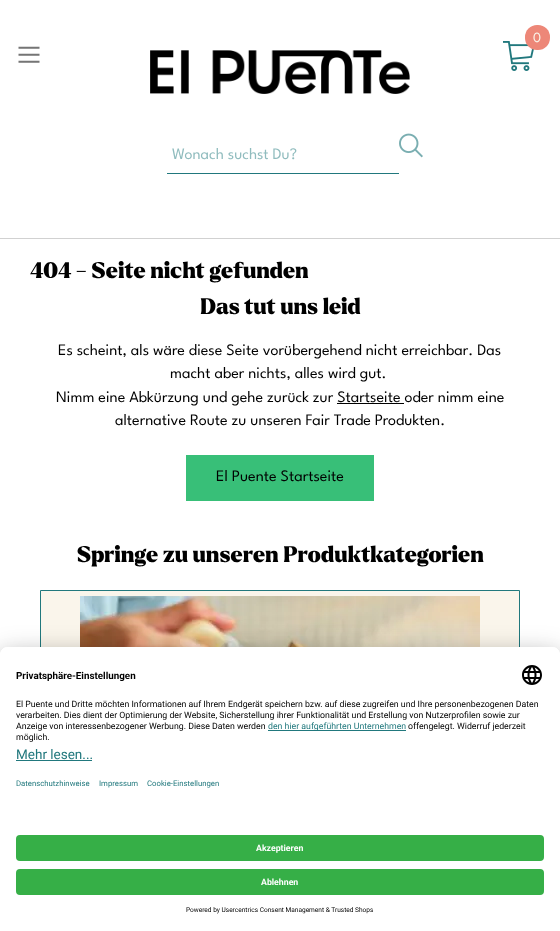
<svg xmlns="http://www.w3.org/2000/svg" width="560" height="931">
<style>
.a{font:14px League Spartan;fill:#faf5eb}
.b{font:16px League Spartan;fill:#90bcbe}
.c{font:900 22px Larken;fill:#000}
.d{font:16px League Spartan;fill:#000}
.e{font:bold 9.8px Roboto;fill:#000}
.f{font:8.75px Roboto;fill:#000}
.g{font:8.75px Roboto;fill:#21787d}
.h{font:13.5px Roboto;fill:#21787d}
.i{font:7.75px Roboto;fill:#21787d}
.j{font:bold 8.75px Roboto;fill:#fff}
.k{font:6.55px Roboto;fill:#000}
</style>
<rect width="100%" height="100%" fill="#fff"/>
<path fill="#d1d1d1" d="M0 238h560v1H0z"/>
<image href="1.png" x="503" y="41" width="31" height="30"/>
<rect fill="#ed8778" x="525" y="25" width="25" height="25" rx="12"/>
<image href="2.png" x="18" y="46" width="22" height="17"/>
<image href="3.png" x="150" y="50" width="260" height="44"/>
<path fill="#21787d" d="M167 173h232v1H167z"/>
<image href="4.png" x="399" y="133" width="24" height="25"/>
<path fill="#000" d="M337 403h67v1H337z"/>
<path fill="#38bf78" d="M186 455h188v46H186z"/>
<path fill="#faf5eb" d="M41 591h478v56H41z"/>
<path fill="none" stroke="#21787d" d="M40.5 590.5h479v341H40.5z"/>
<image href="5.png" x="80" y="596" width="400" height="51"/>
<rect fill="#0000004d" filter="blur(14px)" y="667" width="560" height="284" rx="8"/>
<rect fill="#00000038" filter="blur(13px)" y="652" width="560" height="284" rx="8"/>
<path fill="#fff" d="M8 647h544c4.5 0 8 3.5 8 8v276h-560v-276c0-4.5 3.5-8 8-8z"/>
<path fill="#fff" d="M8 647h544c4.5 0 8 3.5 8 8v168h-560v-168c0-4.5 3.5-8 8-8z"/>
<image href="6.png" x="522" y="665" width="20" height="20"/>
<path fill="#21787d" d="M268 730h138v1H268z"/>
<path fill="#21787d" d="M16 760h76v1H16z"/>
<rect fill="#36af47" x="16" y="835" width="528" height="26" rx="4"/>
<rect fill="#36af47" x="16" y="869" width="528" height="26" rx="4"/>
<text class="a" x="533" y="42">0</text>
<text class="b" x="172" y="159">Wonach suchst Du?</text>
<text class="c" x="30" y="278">404 - Seite nicht gefunden</text>
<text class="c" x="200" y="314">Das tut uns leid</text>
<text class="d" x="58" y="355">Es scheint, als wäre diese Seite vorübergehend nicht erreichbar. Das</text>
<text class="d" x="170" y="378">macht aber nichts, alles wird gut.</text>
<text class="d" x="56" y="402">Nimm eine Abkürzung und gehe zurück zur Startseite oder nimm eine</text>
<text class="d" x="115" y="425">alternative Route zu unseren Fair Trade Produkten.</text>
<text class="d" x="216" y="481">El Puente Startseite</text>
<text class="c" x="77" y="562">Springe zu unseren Produktkategorien</text>
<text class="e" x="16" y="679">Privatsphäre-Einstellungen</text>
<text class="f" x="16" y="707">El Puente und Dritte möchten Informationen auf Ihrem Endgerät speichern bzw. auf diese zugreifen und Ihre personenbezogenen Daten</text>
<text class="f" x="16" y="718">verarbeiten. Dies dient der Optimierung der Website, Sicherstellung ihrer Funktionalität und Erstellung von Nutzerprofilen sowie zur</text>
<text class="f" x="16" y="729">Anzeige von interessenbezogener Werbung. Diese Daten werden</text>
<text class="g" x="268" y="729">den hier aufgeführten Unternehmen</text>
<text class="f" x="408" y="729">offengelegt. Widerruf jederzeit</text>
<text class="f" x="16" y="740">möglich.</text>
<text class="h" x="16" y="759">Mehr lesen...</text>
<text class="i" x="16" y="786">Datenschutzhinweise</text>
<text class="i" x="99" y="786">Impressum</text>
<text class="i" x="147" y="786">Cookie-Einstellungen</text>
<text class="j" x="256" y="851">Akzeptieren</text>
<text class="j" x="261" y="885">Ablehnen</text>
<text class="k" x="186" y="912">Powered by Usercentrics Consent Management &amp; Trusted Shops</text>
</svg>
